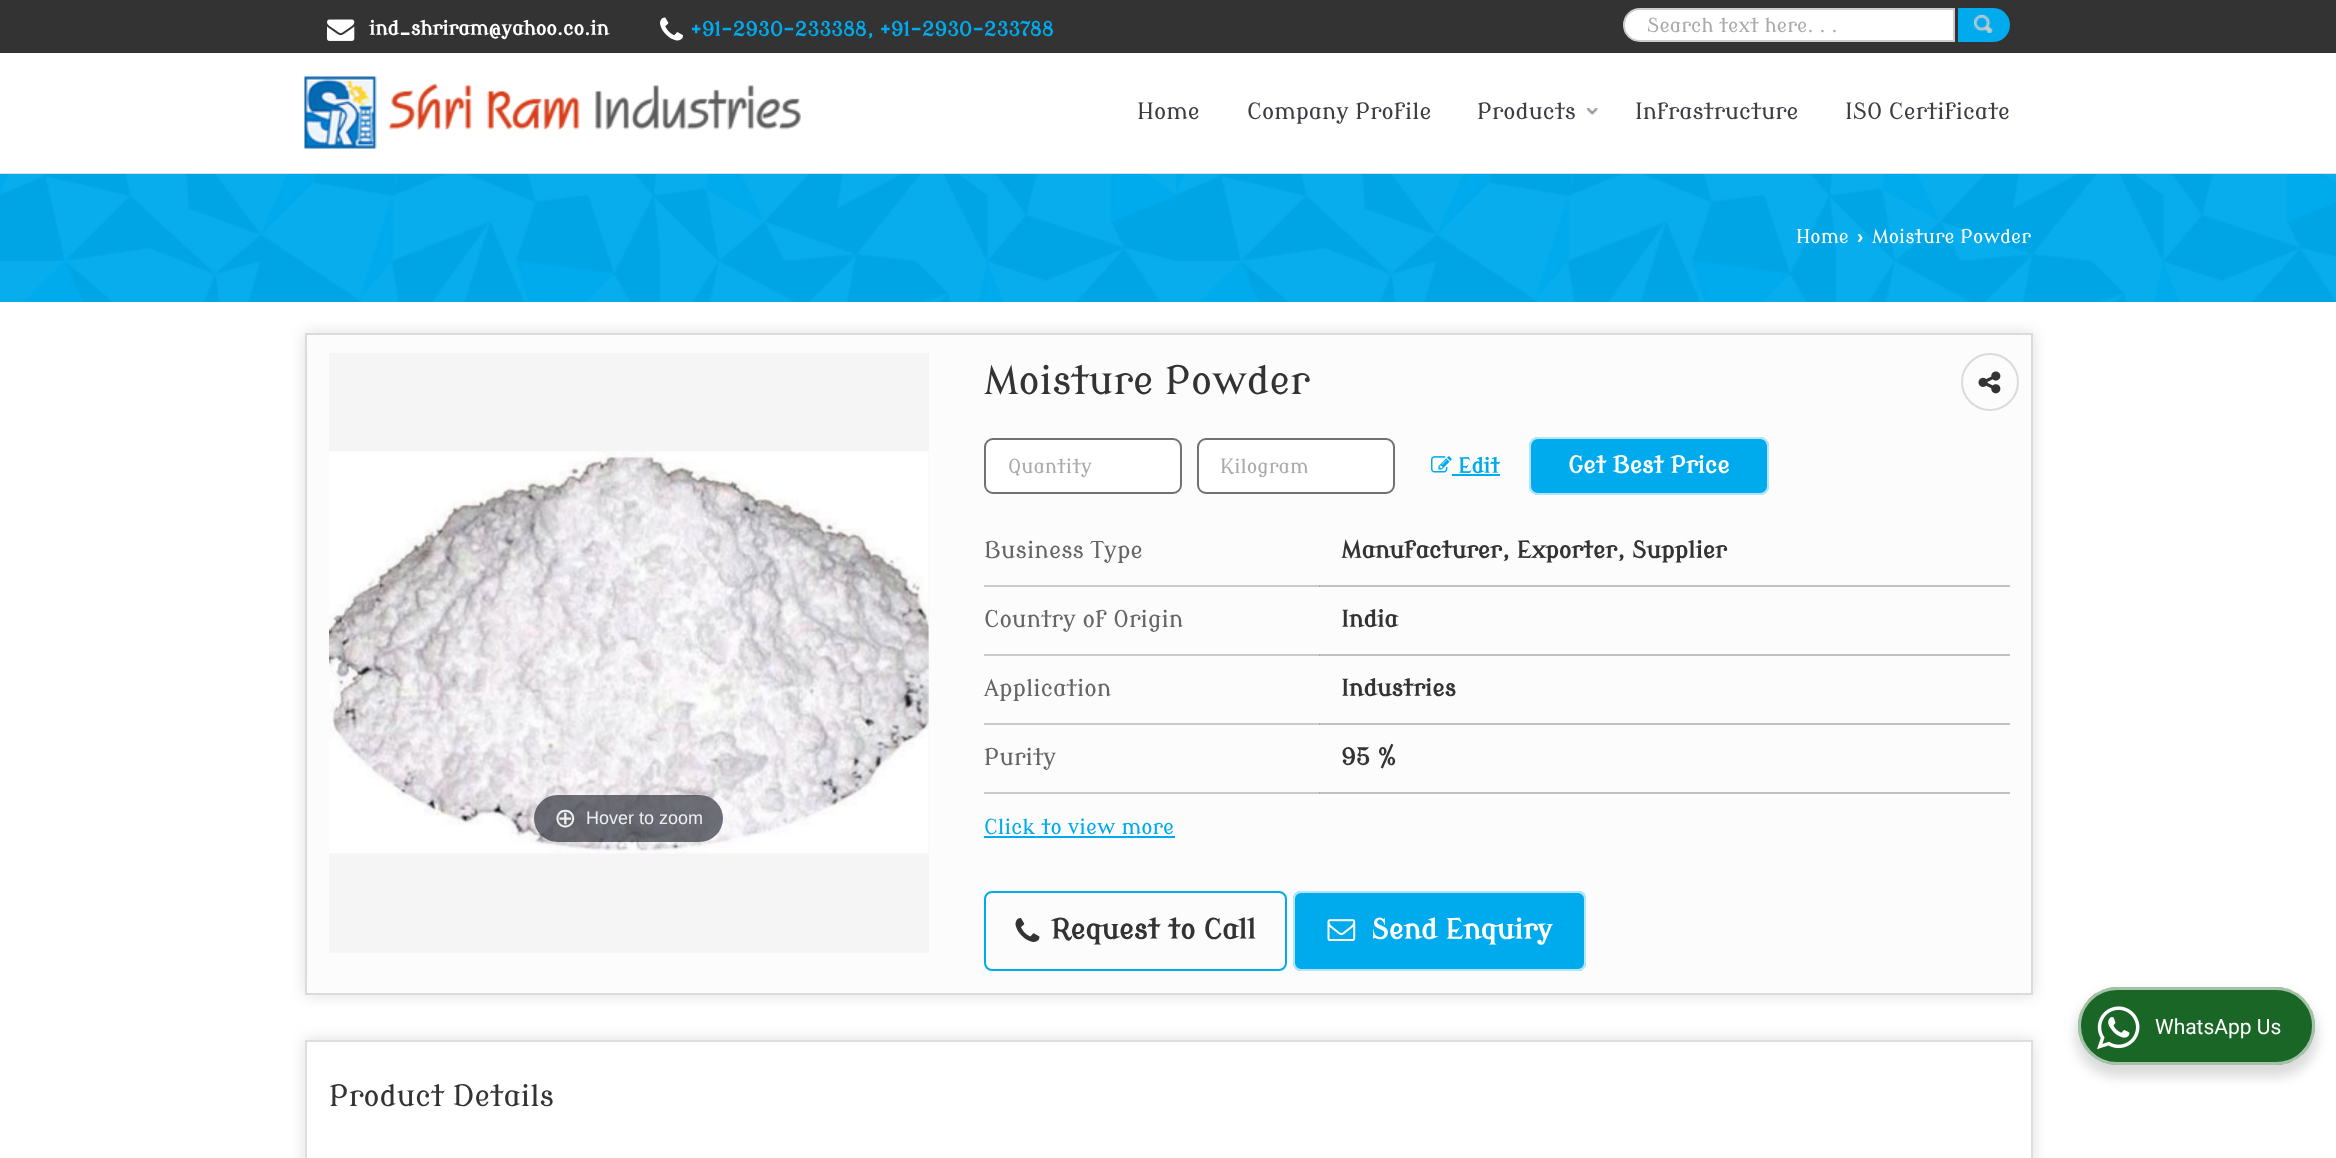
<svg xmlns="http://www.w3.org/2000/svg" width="2336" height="1158">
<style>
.a{font:bold 19.5px Modern Antiqua;fill:#fff}
.b{font:bold 19.5px Modern Antiqua;fill:#00abed}
.c{font:19.5px Modern Antiqua;fill:#aaa}
.d{font:22.5px Modern Antiqua;fill:#3c3c44}
.e{font:19px Modern Antiqua;fill:#fff}
.f{font:bold 19px Liberation Sans;fill:#fff}
.g{font:27px DejaVu Sans;fill:#eee}
.h{font:18px Liberation Sans;fill:#eee}
.i{font:39px Modern Antiqua;fill:#333}
.j{font:bold 20.75px Modern Antiqua;fill:#00abed}
.k{font:bold 23.1px Modern Antiqua;fill:#fff}
.l{font:23.1px Modern Antiqua;fill:#656565}
.m{font:bold 23.1px Modern Antiqua;fill:#333}
.n{font:20.75px Modern Antiqua;fill:#00abed}
.o{font:bold 27.75px Modern Antiqua;fill:#333}
.p{font:bold 27.75px Modern Antiqua;fill:#fff}
.q{font:29.5px Modern Antiqua;fill:#333}
.r{font:21px Roboto;fill:#fff}
</style>
<defs>
<clipPath id="clip1"><path d="M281 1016h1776v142h-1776zm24 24h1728v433h-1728z" clip-rule="evenodd"/></clipPath>
</defs>
<rect width="100%" height="100%" fill="#fff"/>
<path fill="#333" d="M0 0h2336v53H0z"/>
<image href="1.png" x="327" y="19" width="28" height="22"/>
<image href="2.png" x="660" y="17" width="23" height="24"/>
<path fill="#fff" stroke="#ccc" stroke-width="2" d="M1640 9h314v32h-314c-9 0-16-7-16-16c0-9 7-16 16-16z"/>
<path fill="#00abed" d="M1958 8h35c9.5 0 17 7.5 17 17c0 9.5-7.5 17-17 17h-35z"/>
<image href="3.png" x="1974" y="15" width="19" height="18"/>
<path fill="#dedede" d="M0 173h2336v1H0z"/>
<image href="4.png" x="304" y="76" width="497" height="73"/>
<image href="5.png" x="1586" y="108" width="12" height="8"/>
<path fill="#00abed" d="M0 174h2336v128H0z"/>
<image href="6.png" x="0" y="174" width="2336" height="128"/>
<path fill="#ccccccab" filter="blur(7.5px)" d="M305 333h1728v662H305z"/>
<path fill="#fcfcfc" stroke="#dbdbdb" stroke-width="2" d="M306 334h1726v660H306z"/>
<path fill="#f5f5f5" d="M329 353h600v600H329z"/>
<image href="7.png" x="329" y="451" width="600" height="403"/>
<rect fill="#31333db3" x="534" y="795" width="189" height="47" rx="23.5"/>
<circle fill="none" stroke="#dbdbdb" stroke-width="2" cx="1990" cy="382" r="28"/>
<image href="8.png" x="1978" y="371" width="23" height="23"/>
<rect fill="#fff" stroke="#717171" stroke-width="2" x="985" y="439" width="196" height="54" rx="8"/>
<rect fill="#fff" stroke="#717171" stroke-width="2" x="1198" y="439" width="196" height="54" rx="8"/>
<image href="9.png" x="1431" y="456" width="21" height="17"/>
<path fill="#00abed" d="M1452 474h48v2H1452z"/>
<rect fill="#00abed" x="1529" y="437" width="240" height="58" rx="9"/>
<rect fill="none" stroke="#ffffffb3" stroke-width="2" x="1530" y="438" width="238" height="56" rx="8"/>
<path fill="#cacaca" d="M984 585h336v2H984z"/>
<path fill="#c1c1c1" d="M1319 585h691v2H1319z"/>
<path fill="#acacac" d="M1319 585h1v2H1319z"/>
<path fill="#cacaca" d="M984 654h336v2H984z"/>
<path fill="#c1c1c1" d="M1319 654h691v2H1319z"/>
<path fill="#acacac" d="M1319 654h1v2H1319z"/>
<path fill="#cacaca" d="M984 723h336v2H984z"/>
<path fill="#c1c1c1" d="M1319 723h691v2H1319z"/>
<path fill="#acacac" d="M1319 723h1v2H1319z"/>
<path fill="#cacaca" d="M984 792h336v2H984z"/>
<path fill="#c1c1c1" d="M1319 792h691v2H1319z"/>
<path fill="#acacac" d="M1319 792h1v2H1319z"/>
<path fill="#00abed" d="M984 836h191v2H984z"/>
<rect fill="none" stroke="#00abed" stroke-width="2" x="985" y="892" width="301" height="78" rx="7"/>
<image href="10.png" x="1015" y="918" width="25" height="24"/>
<rect fill="#00abed" x="1293" y="891" width="293" height="80" rx="8"/>
<rect fill="none" stroke="#ffffffb3" stroke-width="2" x="1294" y="892" width="291" height="78" rx="7"/>
<image href="11.png" x="1327" y="919" width="29" height="22"/>
<g clip-path="url(#clip1)">
<path fill="#ccccccab" filter="blur(7.5px)" d="M305 1040h1728v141H305z"/>
</g>
<path fill="none" stroke="#00000021" stroke-width="2" d="M306 1041h1726v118H306z"/>
<rect fill="#00000024" filter="blur(6px)" x="2075" y="993" width="243" height="84" rx="42"/>
<rect fill="#196626" x="2078" y="987" width="237" height="78" rx="39"/>
<rect fill="none" stroke="#ffffff99" stroke-width="3" x="2079.5" y="988.5" width="234" height="75" rx="37.5"/>
<image href="12.png" x="2097" y="1006" width="43" height="44"/>
<text class="a" x="369" y="35">ind_shriram@yahoo.co.in</text>
<text class="b" x="690" y="36">+91-2930-233388, +91-2930-233788</text>
<text class="c" x="1647" y="32">Search text here. . .</text>
<text class="d" x="1137" y="119">Home</text>
<text class="d" x="1247" y="119">Company Profile</text>
<text class="d" x="1477" y="119">Products</text>
<text class="d" x="1635" y="119">Infrastructure</text>
<text class="d" x="1845" y="119">ISO Certificate</text>
<text class="e" x="1796" y="243">Home</text>
<text class="f" x="1857" y="243">›</text>
<text class="e" x="1872" y="243">Moisture Powder</text>
<text class="g" x="554" y="827">⊕</text>
<text class="h" x="586" y="824">Hover to zoom</text>
<text class="i" x="984" y="394">Moisture Powder</text>
<text class="c" x="1008" y="473">Quantity</text>
<text class="c" x="1220" y="473">Kilogram</text>
<text class="j" x="1458" y="473">Edit</text>
<text class="k" x="1568" y="473">Get Best Price</text>
<text class="l" x="984" y="558">Business Type</text>
<text class="m" x="1341" y="558">Manufacturer, Exporter, Supplier</text>
<text class="l" x="984" y="627">Country of Origin</text>
<text class="m" x="1341" y="627">India</text>
<text class="l" x="984" y="696">Application</text>
<text class="m" x="1341" y="696">Industries</text>
<text class="l" x="984" y="765">Purity</text>
<text class="m" x="1341" y="765">95 %</text>
<text class="n" x="984" y="834">Click to view more</text>
<text class="o" x="1051" y="939">Request to Call</text>
<text class="p" x="1371" y="939">Send Enquiry</text>
<text class="q" x="329" y="1106">Product Details</text>
<text class="r" x="2155" y="1034">WhatsApp Us</text>
</svg>
